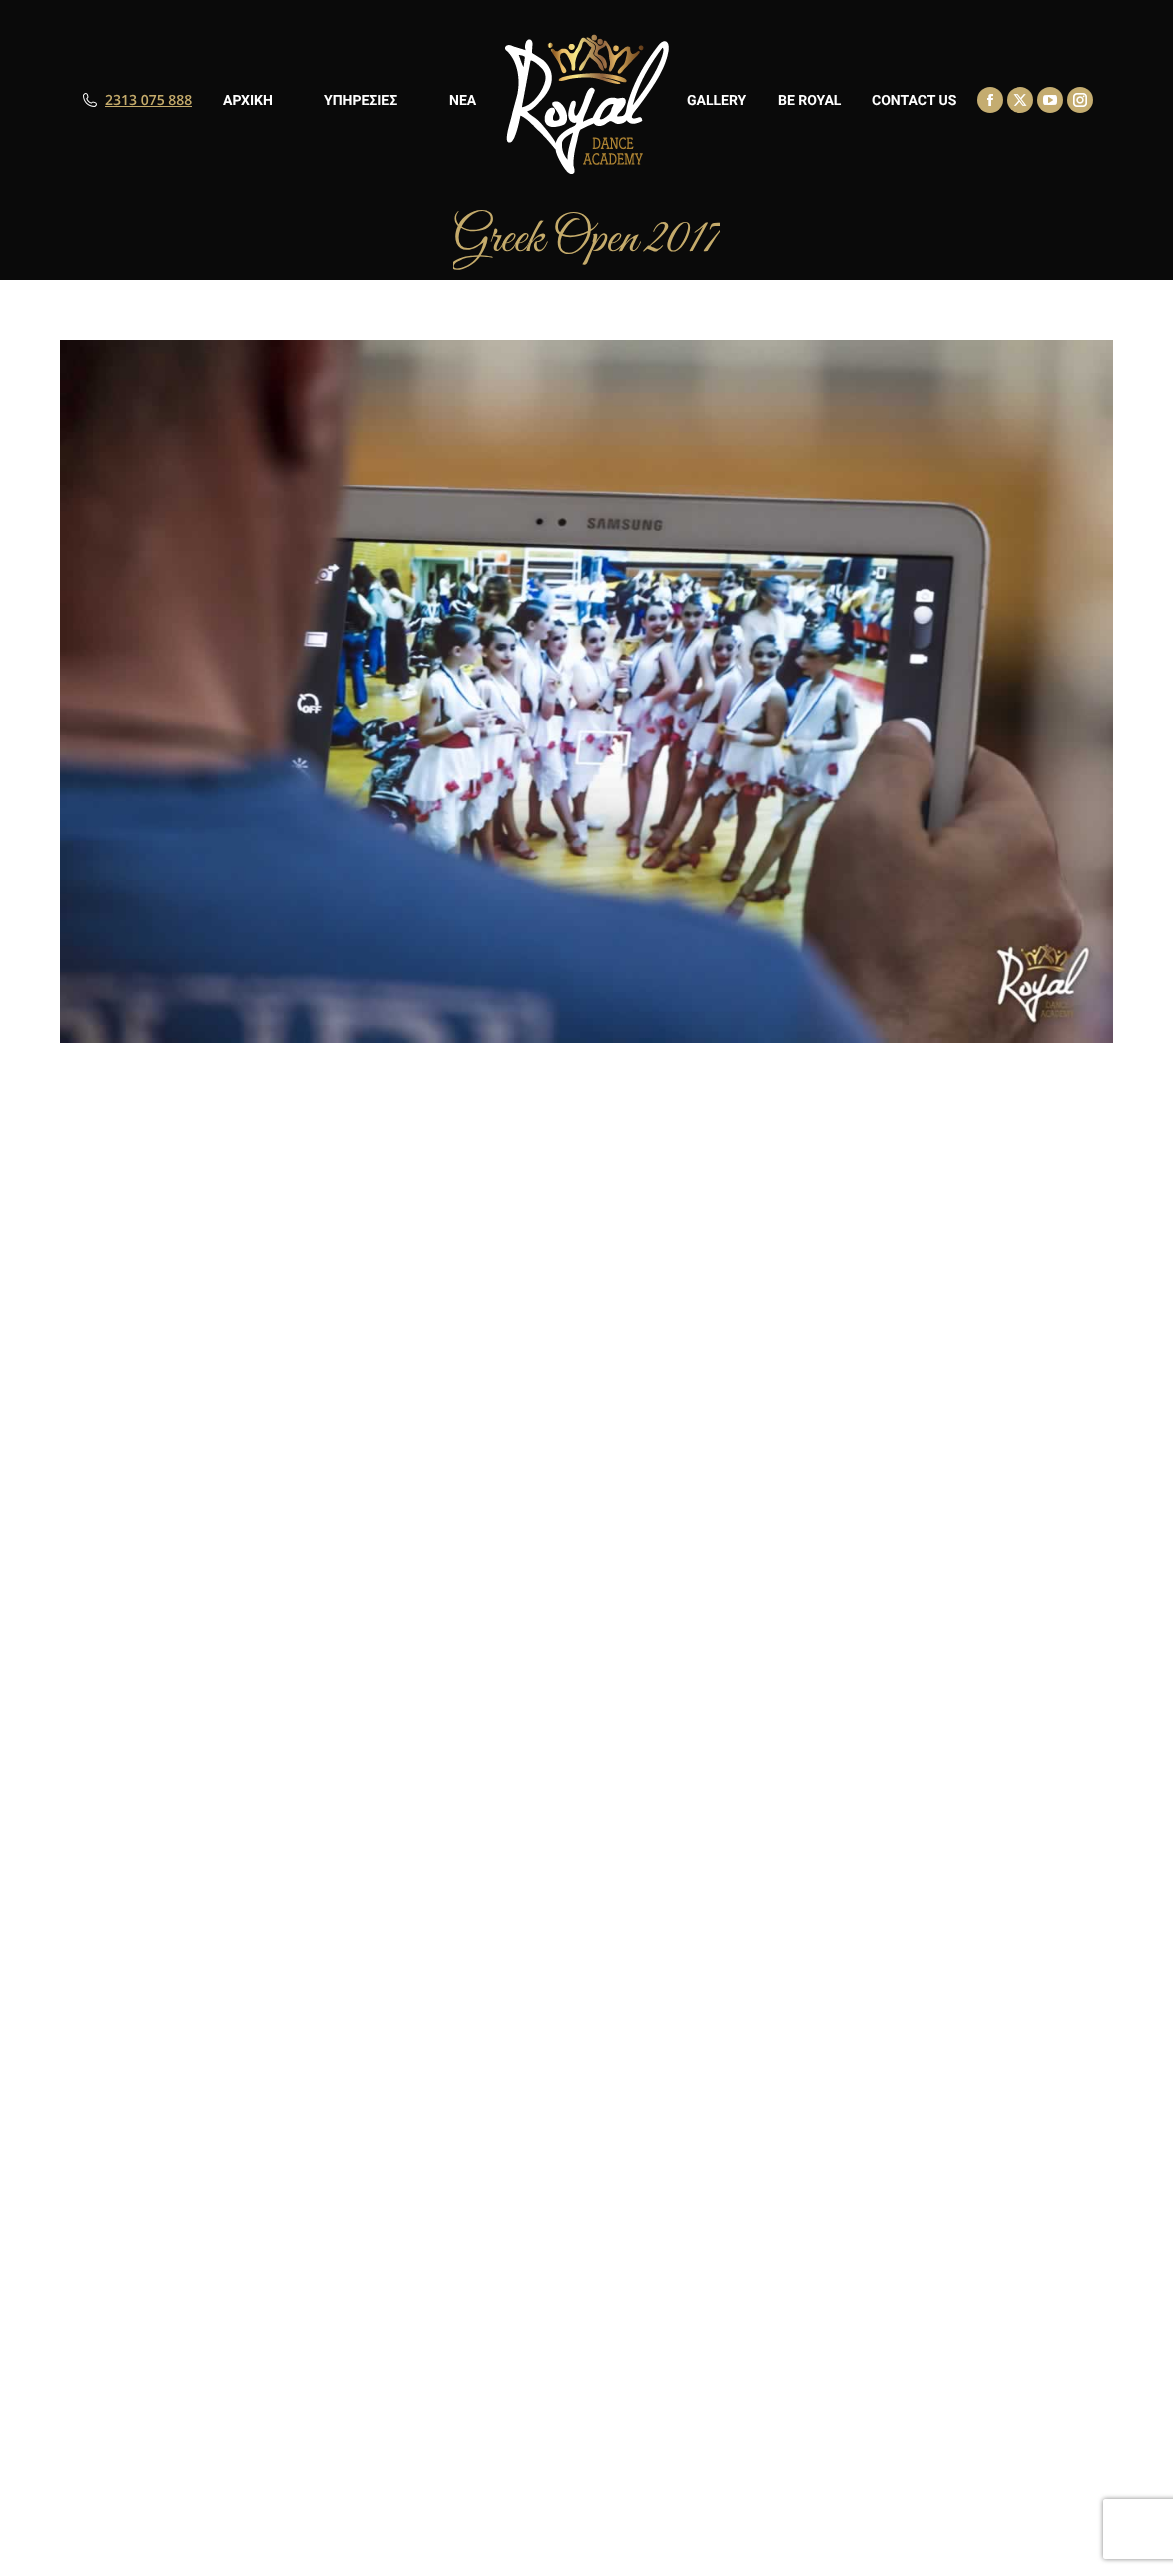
<svg xmlns="http://www.w3.org/2000/svg" width="1173" height="2573">
<style>
.a{font:600 14px Open Sans;fill:#c5ab6b}
.b{font:bold 14px Roboto;fill:#fff}
.c{font:50px Great Vibes;fill:#c5ab6b}
</style>
<defs>
<clipPath id="clip1"><path d="M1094 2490h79v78h-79zm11 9h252c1 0 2 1 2 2v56c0 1-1 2-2 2h-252c-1 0-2-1-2-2v-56c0-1 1-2 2-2z" clip-rule="evenodd"/></clipPath>
<clipPath id="clip2"><path d="M453 205h267v70H453z"/></clipPath>
</defs>
<rect width="100%" height="100%" fill="#fff"/>
<path fill="#0a0a0a" d="M0 0h1173v280H0z"/>
<image href="1.png" x="83" y="93" width="14" height="14"/>
<path fill="#c5ab6b" d="M105 106h87v1H105z"/>
<image href="2.png" x="505" y="34" width="164" height="140"/>
<circle fill="#c4ac70" cx="990" cy="100" r="13"/>
<image href="3.png" x="987" y="94" width="6" height="12"/>
<circle fill="#c4ac70" cx="1020" cy="100" r="13"/>
<image href="4.png" x="1013" y="94" width="14" height="12"/>
<circle fill="#c4ac70" cx="1050" cy="100" r="13"/>
<image href="5.png" x="1043" y="95" width="14" height="10"/>
<circle fill="#c4ac70" cx="1080" cy="100" r="13"/>
<image href="6.png" x="1073" y="93" width="14" height="14"/>
<image href="7.png" x="60" y="340" width="1053" height="703"/>
<g clip-path="url(#clip1)">
<rect fill="#808080" filter="blur(2.5px)" x="1103" y="2499" width="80" height="60" rx="2"/>
</g>
<text class="a" x="105" y="105">2313 075 888</text>
<text class="b" x="223" y="105">ΑΡΧΙΚΗ</text>
<text class="b" x="324" y="105">ΥΠΗΡΕΣΙΕΣ</text>
<text class="b" x="449" y="105">ΝΕΑ</text>
<text class="b" x="687" y="105">GALLERY</text>
<text class="b" x="778" y="105">BE ROYAL</text>
<text class="b" x="872" y="105">CONTACT US</text>
<g clip-path="url(#clip2)">
<text class="c" x="453" y="251">Greek Open 2017</text>
</g>
</svg>
